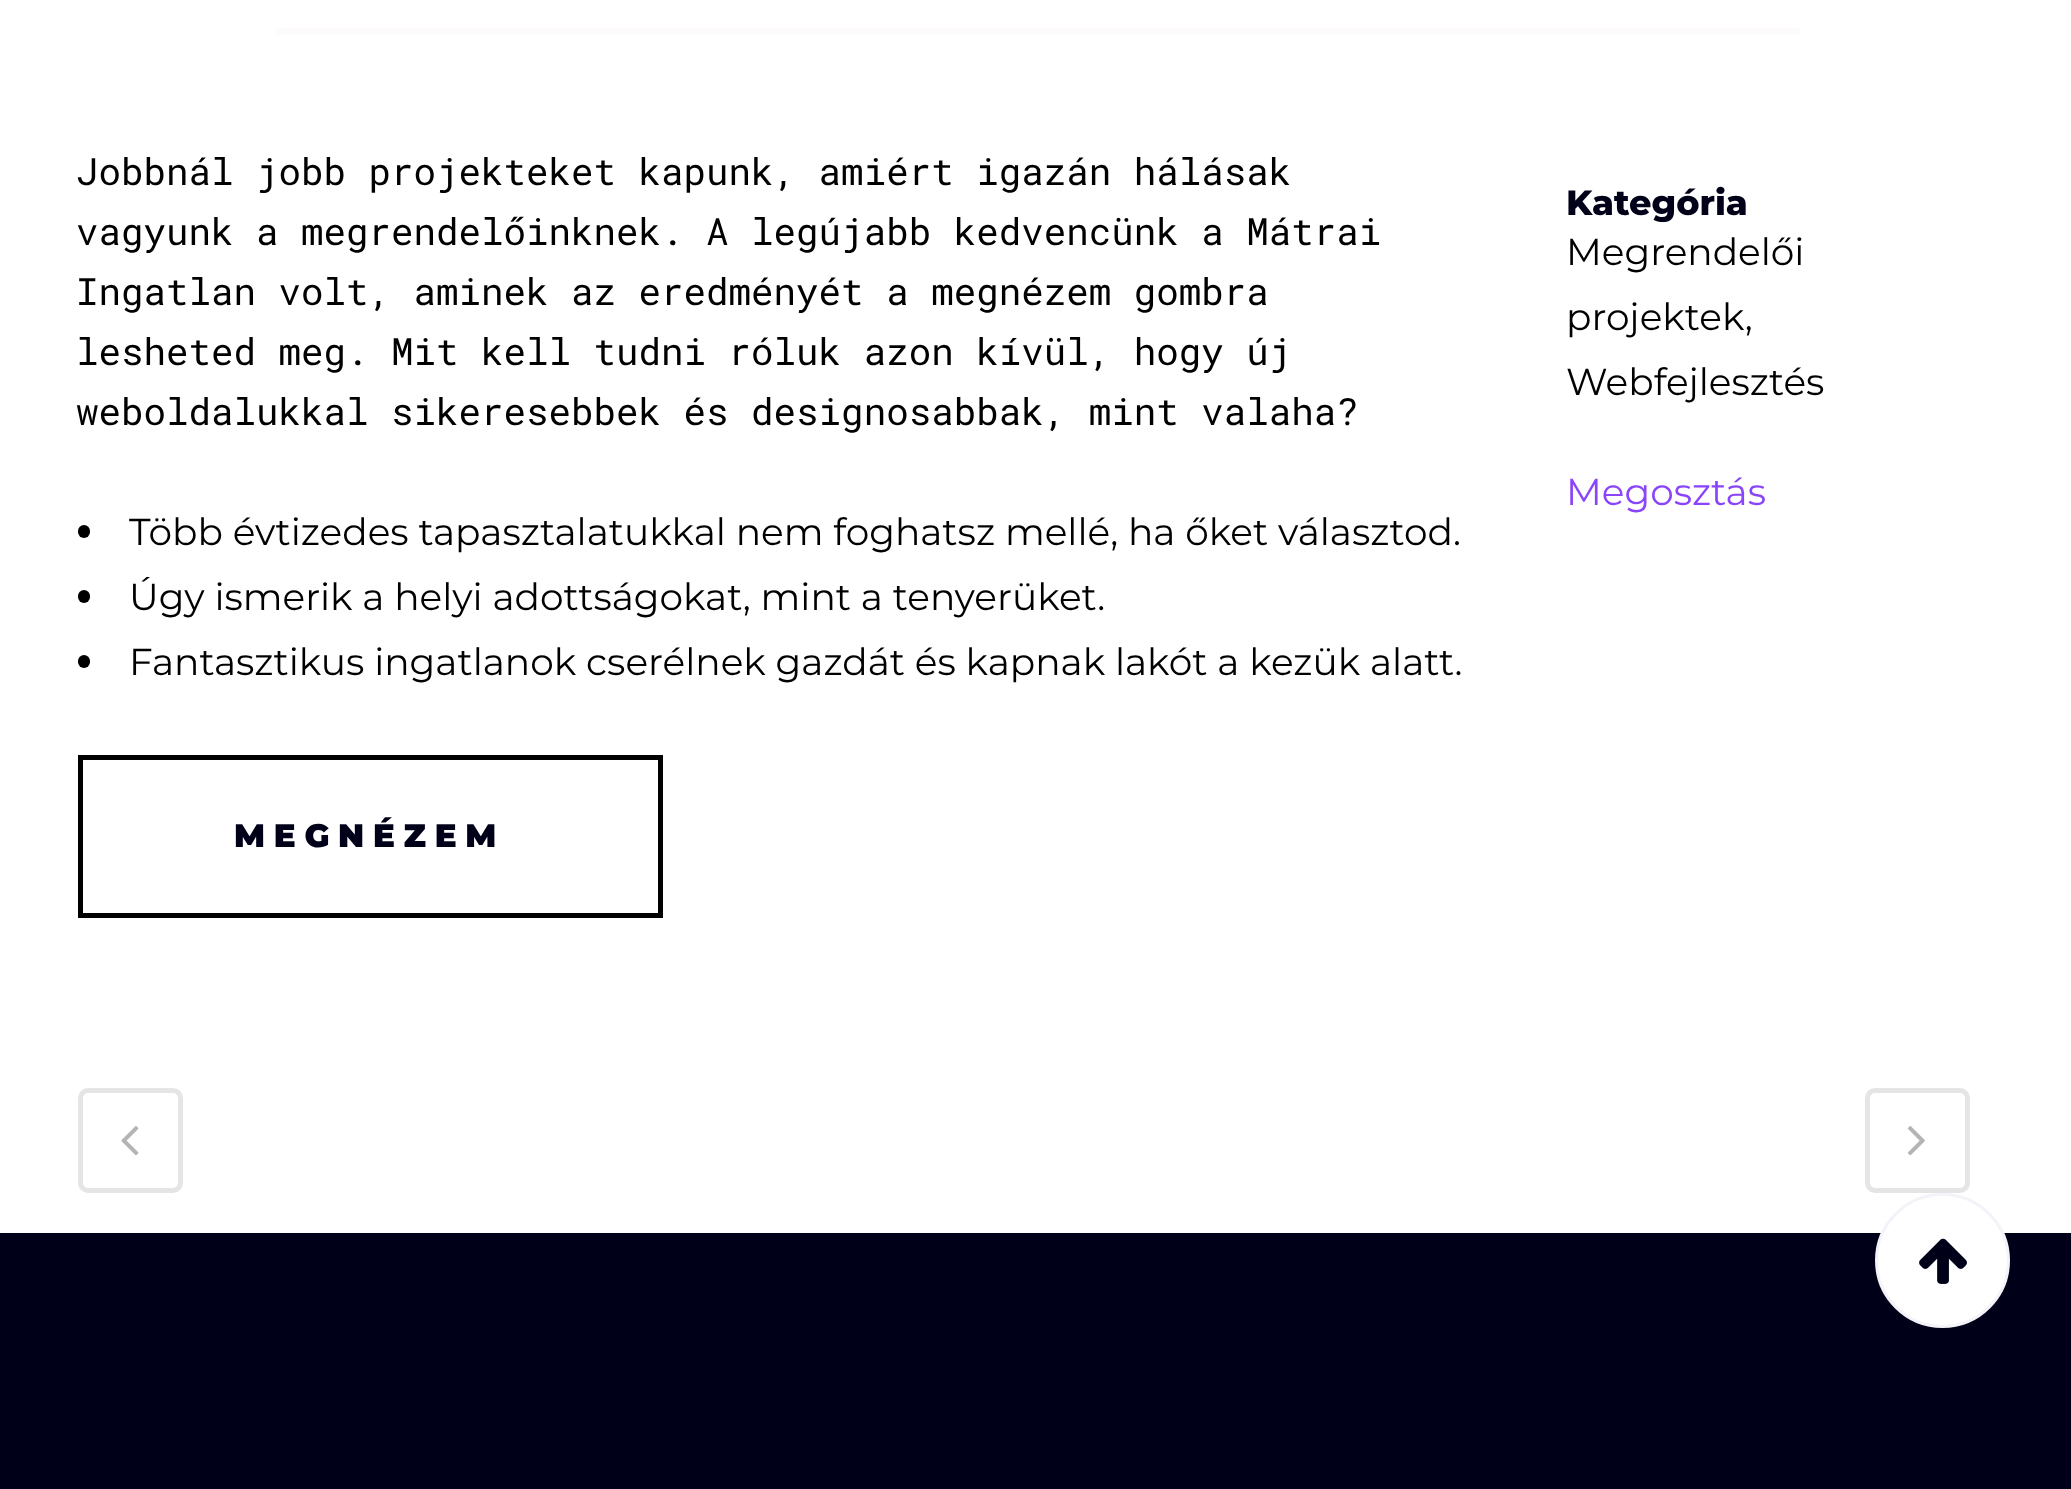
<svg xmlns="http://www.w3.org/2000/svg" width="2071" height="1489">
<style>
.a{font:37.5px Roboto Mono;fill:#000}
.b{font:37.5px Montserrat;fill:#000}
.c{font:900 32.5px Montserrat;letter-spacing:8.75px;fill:#000019}
.d{font:800 35px Montserrat;fill:#000019}
.e{font:37.5px Montserrat;fill:#8a44fa}
</style>
<rect width="100%" height="100%" fill="#fff"/>
<path fill="#fcfafb" d="M276 28h1524v7H276z"/>
<rect fill="#000" x="78" y="525" width="12" height="13" rx="6"/>
<rect fill="#000" x="78" y="590" width="12" height="13" rx="6"/>
<rect fill="#000" x="78" y="655" width="12" height="13" rx="6"/>
<path fill="none" stroke="#000" stroke-width="5" d="M80.5 757.5h580v158H80.5z"/>
<rect fill="none" stroke="#e5e5e5" stroke-width="5" x="80.5" y="1090.5" width="100" height="100" rx="7.5"/>
<image href="1.png" x="121" y="1126" width="18" height="30"/>
<rect fill="none" stroke="#e5e5e5" stroke-width="5" x="1867.5" y="1090.5" width="100" height="100" rx="7.5"/>
<image href="2.png" x="1907" y="1126" width="18" height="30"/>
<path fill="#000019" d="M0 1233h2071v256H0z"/>
<circle fill="#fff" stroke="#f5f2f9" stroke-width="3" cx="1942.5" cy="1260.5" r="66"/>
<image href="3.png" x="1919" y="1238" width="48" height="46"/>
<text class="a" x="76" y="185">Jobbnál jobb projekteket kapunk, amiért igazán hálásak</text>
<text class="a" x="76" y="245">vagyunk a megrendelőinknek. A legújabb kedvencünk a Mátrai</text>
<text class="a" x="76" y="305">Ingatlan volt, aminek az eredményét a megnézem gombra</text>
<text class="a" x="76" y="365">lesheted meg. Mit kell tudni róluk azon kívül, hogy új</text>
<text class="a" x="76" y="425">weboldalukkal sikeresebbek és designosabbak, mint valaha?</text>
<text class="b" x="129" y="545">Több évtizedes tapasztalatukkal nem foghatsz mellé, ha őket választod.</text>
<text class="b" x="129" y="610">Úgy ismerik a helyi adottságokat, mint a tenyerüket.</text>
<text class="b" x="129" y="675">Fantasztikus ingatlanok cserélnek gazdát és kapnak lakót a kezük alatt.</text>
<text class="c" x="234" y="847">MEGNÉZEM</text>
<text class="d" x="1566" y="215">Kategória</text>
<text class="b" x="1566" y="265">Megrendelői</text>
<text class="b" x="1566" y="330">projektek,</text>
<text class="b" x="1566" y="395">Webfejlesztés</text>
<text class="e" x="1566" y="505">Megosztás</text>
</svg>
